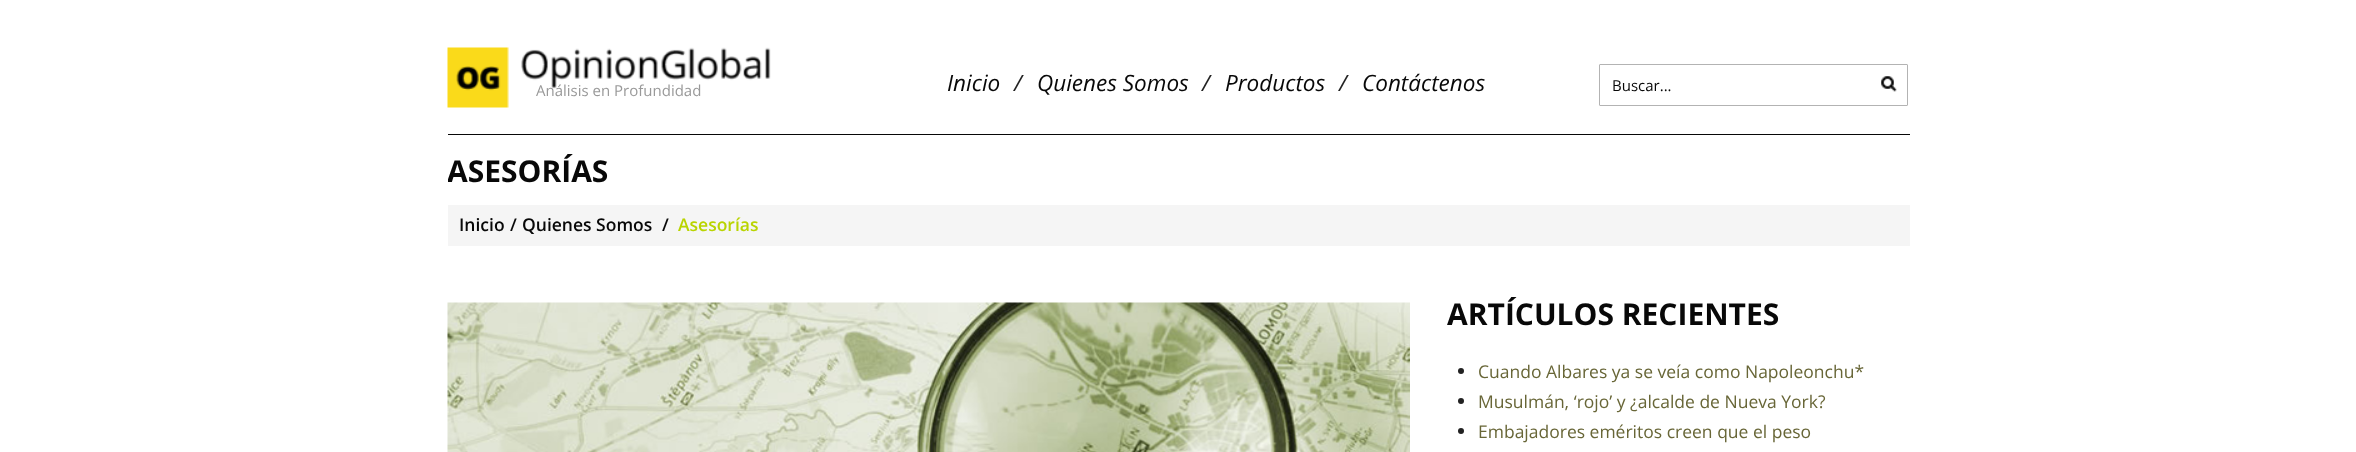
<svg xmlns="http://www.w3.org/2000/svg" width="2356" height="452">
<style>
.a{font:15px Open Sans;fill:#999}
.b{font:italic 22.5px Open Sans;fill:#080808}
.c{font:italic 22.5px Open Sans;fill:#222}
.d{font:15px Open Sans;fill:#080808}
.e{font:bold 30px Open Sans;fill:#080808}
.f{font:600 17.5px Open Sans;fill:#080808}
.g{font:600 17.5px Open Sans;fill:#b9d400}
.h{font:17.5px Open Sans;fill:#686637}
</style>
<defs>
<clipPath id="clip1"><path d="M448 150h1462v55H448z"/></clipPath>
</defs>
<rect width="100%" height="100%" fill="#fff"/>
<path fill="#080808" d="M448 134h1462v1H448z"/>
<image href="1.png" x="447" y="47" width="324" height="61"/>
<rect fill="none" stroke="#b3b3b3" x="1599.5" y="64.5" width="308" height="41" rx="0.5"/>
<image href="2.png" x="1881" y="76" width="16" height="16"/>
<path fill="#f5f5f5" d="M448 205h1462v41H448z"/>
<image href="3.png" x="447" y="302" width="963" height="150"/>
<circle fill="#222" cx="1461" cy="371" r="3"/>
<circle fill="#222" cx="1461" cy="401" r="3"/>
<circle fill="#222" cx="1461" cy="431" r="3"/>
<text class="a" x="536" y="96">Análisis en Profundidad</text>
<text class="b" x="947" y="91">Inicio</text>
<text class="c" x="1014" y="91">/</text>
<text class="b" x="1037" y="91">Quienes Somos</text>
<text class="c" x="1202" y="91">/</text>
<text class="b" x="1225" y="91">Productos</text>
<text class="c" x="1339" y="91">/</text>
<text class="b" x="1362" y="91">Contáctenos</text>
<text class="d" x="1612" y="91">Buscar...</text>
<g clip-path="url(#clip1)">
<text class="e" x="447" y="182">ASESORÍAS</text>
</g>
<text class="f" x="459" y="231">Inicio</text>
<text class="f" x="510" y="231">/</text>
<text class="f" x="522" y="231">Quienes Somos</text>
<text class="f" x="662" y="231">/</text>
<text class="g" x="678" y="231">Asesorías</text>
<text class="e" x="1447" y="325">ARTÍCULOS RECIENTES</text>
<text class="h" x="1478" y="378">Cuando Albares ya se veía como Napoleonchu*</text>
<text class="h" x="1478" y="408">Musulmán, ‘rojo’ y ¿alcalde de Nueva York?</text>
<text class="h" x="1478" y="438">Embajadores eméritos creen que el peso</text>
</svg>
